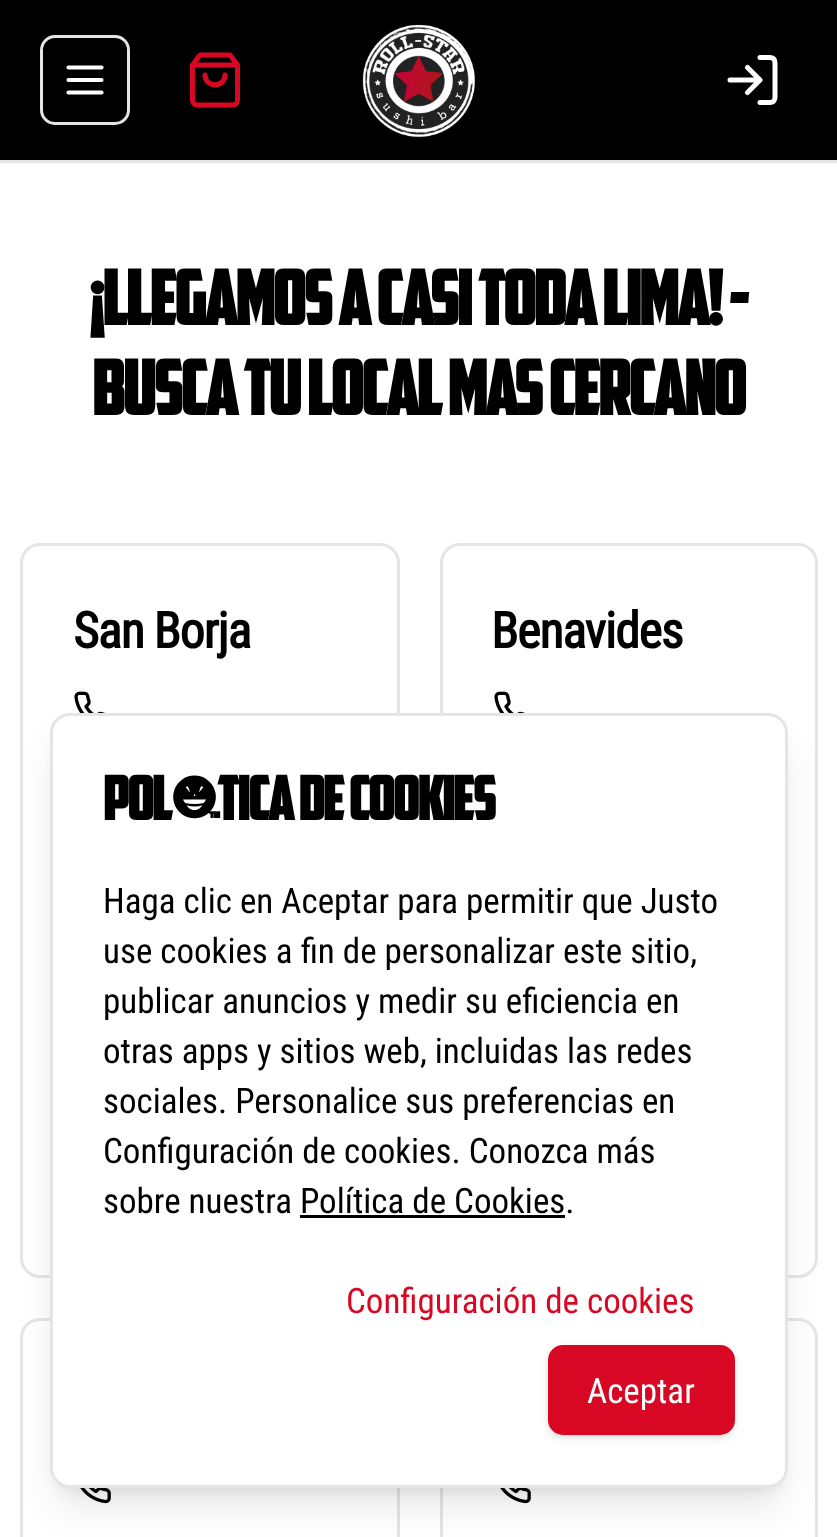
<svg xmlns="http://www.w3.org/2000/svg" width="837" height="1537">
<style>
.a{font:bold 75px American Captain;letter-spacing:-1.9px;fill:#000}
.b{font:bold 50px Roboto Condensed;letter-spacing:-1.25px;fill:#000}
.c{font:bold 60px American Captain;letter-spacing:-1.5px;fill:#000}
.d{font:35px Roboto Condensed;fill:#000}
.e{font:35px Roboto Condensed;fill:#d80825}
.f{font:35px Roboto Condensed;fill:#fff}
</style>
<rect width="100%" height="100%" fill="#fff"/>
<path fill="#000" d="M0 0h837v160H0z"/>
<path fill="#e5e5e5" d="M0 160h837v3H0z"/>
<rect fill="none" stroke="#e5e5e5" stroke-width="3" x="41.5" y="36.5" width="87" height="87" rx="13.5"/>
<path fill="none" stroke="#fff" stroke-width="4.2" stroke-linecap="round" stroke-linejoin="round" d="M68.5 80h33m-33-12.5h33m-33 25h33"/>
<path fill="none" stroke="#d80825" stroke-width="5" stroke-linecap="round" stroke-linejoin="round" d="M200 55l-7.5 10v35c0 3 2 5 5 5h35c3 0 5-2 5-5v-35l-7.5-10zm-7.5 10h45m-12.5 10c0 13-20 13-20 0"/>
<image href="1.png" x="362" y="24" width="114" height="114"/>
<path fill="none" stroke="#fff" stroke-width="5" stroke-linecap="round" stroke-linejoin="round" d="M760 57.5h10c3 0 5 2 5 5v35c0 3-2 5-5 5h-10m-12.5-10l12.5-12.5l-12.5-12.5m12.5 12.5h-30"/>
<rect fill="none" stroke="#e5e5e5" stroke-width="3" x="21.5" y="544.5" width="377" height="732" rx="18.5"/>
<image href="2.png" x="74" y="691" width="32" height="22"/>
<rect fill="none" stroke="#e5e5e5" stroke-width="3" x="441.5" y="544.5" width="375" height="732" rx="18.5"/>
<image href="2.png" x="494" y="691" width="32" height="22"/>
<rect fill="none" stroke="#e5e5e5" stroke-width="3" x="21.5" y="1319.5" width="377" height="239" rx="18.5"/>
<image href="3.png" x="80" y="1488" width="31" height="16"/>
<rect fill="none" stroke="#e5e5e5" stroke-width="3" x="441.5" y="1319.5" width="375" height="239" rx="18.5"/>
<image href="3.png" x="500" y="1488" width="31" height="16"/>
<rect fill="#0000001a" filter="blur(7.5px)" x="60" y="733" width="718" height="755" rx="10"/>
<rect fill="#0000001a" filter="blur(19px)" x="58" y="745" width="722" height="760" rx="13"/>
<rect fill="#fff" stroke="#e5e5e5" stroke-width="3" x="51.5" y="714.5" width="735" height="772" rx="18.5"/>
<path fill="#000" d="M300 1215h265v3H300z"/>
<rect fill="#0000001a" filter="blur(2.5px)" x="550" y="1350" width="183" height="85" rx="13"/>
<rect fill="#0000001a" filter="blur(4px)" x="548" y="1348" width="187" height="90" rx="15"/>
<rect fill="#d80825" x="548" y="1345" width="187" height="90" rx="15"/>
<text class="a" x="89" y="325">¡Llegamos a casi toda Lima! -</text>
<text class="a" x="92" y="415">Busca tu local mas cercano</text>
<text class="b" x="73" y="648">San Borja</text>
<text class="b" x="491" y="648">Benavides</text>
<text class="c" x="103" y="820">Política de Cookies</text>
<text class="d" x="103" y="913">Haga clic en Aceptar para permitir que Justo</text>
<text class="d" x="103" y="963">use cookies a fin de personalizar este sitio,</text>
<text class="d" x="103" y="1013">publicar anuncios y medir su eficiencia en</text>
<text class="d" x="103" y="1063">otras apps y sitios web, incluidas las redes</text>
<text class="d" x="103" y="1113">sociales. Personalice sus preferencias en</text>
<text class="d" x="103" y="1163">Configuración de cookies. Conozca más</text>
<text class="d" x="103" y="1213">sobre nuestra Política de Cookies.</text>
<text class="e" x="346" y="1313">Configuración de cookies</text>
<text class="f" x="587" y="1403">Aceptar</text>
</svg>
